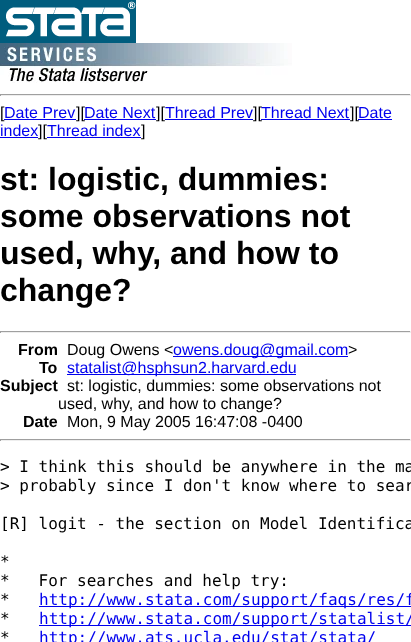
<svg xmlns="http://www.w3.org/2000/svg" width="411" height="642">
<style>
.a{font:16px Liberation Sans;fill:#000}
.b{font:16px Liberation Sans;fill:#00e}
.c{font:bold 32px Liberation Sans;fill:#000}
.d{font:bold 16px Liberation Sans;fill:#000}
.e{font:16px DejaVu Sans Mono;fill:#000}
.f{font:16px DejaVu Sans Mono;fill:#00e}
</style>
<rect width="100%" height="100%" fill="#fff"/>
<image href="1.png" x="0" y="0" width="136" height="43"/>
<image href="2.png" x="0" y="43" width="292" height="40"/>
<path fill="#9f9f9f" d="M0 94h411v1H0z"/>
<path fill="#eee" d="M410 94h1v2H410z"/>
<path fill="#eee" d="M0 95h411v1H0z"/>
<path fill="#9f9f9f" d="M0 94h1v2H0z"/>
<path fill="#00e" d="M165 119h88v1H165z"/>
<path fill="#00e" d="M0 137h38v1H0z"/>
<path fill="#9f9f9f" d="M0 331h411v1H0z"/>
<path fill="#eee" d="M410 331h1v2H410z"/>
<path fill="#eee" d="M0 332h411v1H0z"/>
<path fill="#9f9f9f" d="M0 331h1v2H0z"/>
<path fill="#00e" d="M173 356h175v1H173z"/>
<path fill="#00e" d="M67 374h229v1H67z"/>
<path fill="#9f9f9f" d="M0 439h411v1H0z"/>
<path fill="#eee" d="M410 439h1v2H410z"/>
<path fill="#eee" d="M0 440h411v1H0z"/>
<path fill="#9f9f9f" d="M0 439h1v2H0z"/>
<path fill="#00e" d="M39 606h372v1H39z"/>
<path fill="#00e" d="M39 625h372v1H39z"/>
<text class="a" x="0" y="118">[</text>
<text class="b" x="4" y="118">Date Prev</text>
<path fill="#00e" d="M4 119h72v1H4z"/>
<text class="a" x="76" y="118">][</text>
<text class="b" x="84" y="118">Date Next</text>
<path fill="#00e" d="M84 119h72v1H84z"/>
<text class="a" x="156" y="118">][</text>
<text class="b" x="165" y="118">Thread Prev</text>
<text class="a" x="253" y="118">][</text>
<text class="b" x="261" y="118">Thread Next</text>
<path fill="#00e" d="M261 119h89v1H261z"/>
<text class="a" x="350" y="118">][</text>
<text class="b" x="358" y="118">Date</text>
<path fill="#00e" d="M358 119h34v1H358z"/>
<text class="b" x="0" y="136">index</text>
<text class="a" x="38" y="136">][</text>
<text class="b" x="47" y="136">Thread index</text>
<path fill="#00e" d="M47 137h94v1H47z"/>
<text class="a" x="141" y="136">]</text>
<text class="c" x="0" y="190">st: logistic, dummies:</text>
<text class="c" x="0" y="227">some observations not</text>
<text class="c" x="0" y="264">used, why, and how to</text>
<text class="c" x="0" y="301">change?</text>
<text class="d" x="18" y="355">From</text>
<text class="a" x="67" y="355">Doug Owens &lt;</text>
<text class="b" x="173" y="355">owens.doug@gmail.com</text>
<text class="a" x="348" y="355">&gt;</text>
<text class="d" x="39" y="373">To</text>
<text class="b" x="67" y="373">statalist@hsphsun2.harvard.edu</text>
<text class="d" x="0" y="391">Subject</text>
<text class="a" x="67" y="391">st: logistic, dummies: some observations not</text>
<text class="a" x="58" y="409">used, why, and how to change?</text>
<text class="d" x="23" y="427">Date</text>
<text class="a" x="67" y="427">Mon, 9 May 2005 16:47:08 -0400</text>
<text class="e" x="0" y="472">&gt; I think this should be anywhere in the ma</text>
<text class="e" x="0" y="491">&gt; probably since I don't know where to sear</text>
<text class="e" x="0" y="529">[R] logit - the section on Model Identifica</text>
<text class="e" x="0" y="567">*</text>
<text class="e" xml:space="preserve" x="0" y="586">*   For searches and help try:</text>
<text class="e" x="0" y="605">*</text>
<text class="f" x="39" y="605">http://www.stata.com/support/faqs/res/f</text>
<text class="e" x="0" y="624">*</text>
<text class="f" x="39" y="624">http://www.stata.com/support/statalist/</text>
<text class="e" x="0" y="643">*</text>
<text class="f" x="39" y="643">http://www.ats.ucla.edu/stat/stata/</text>
</svg>
